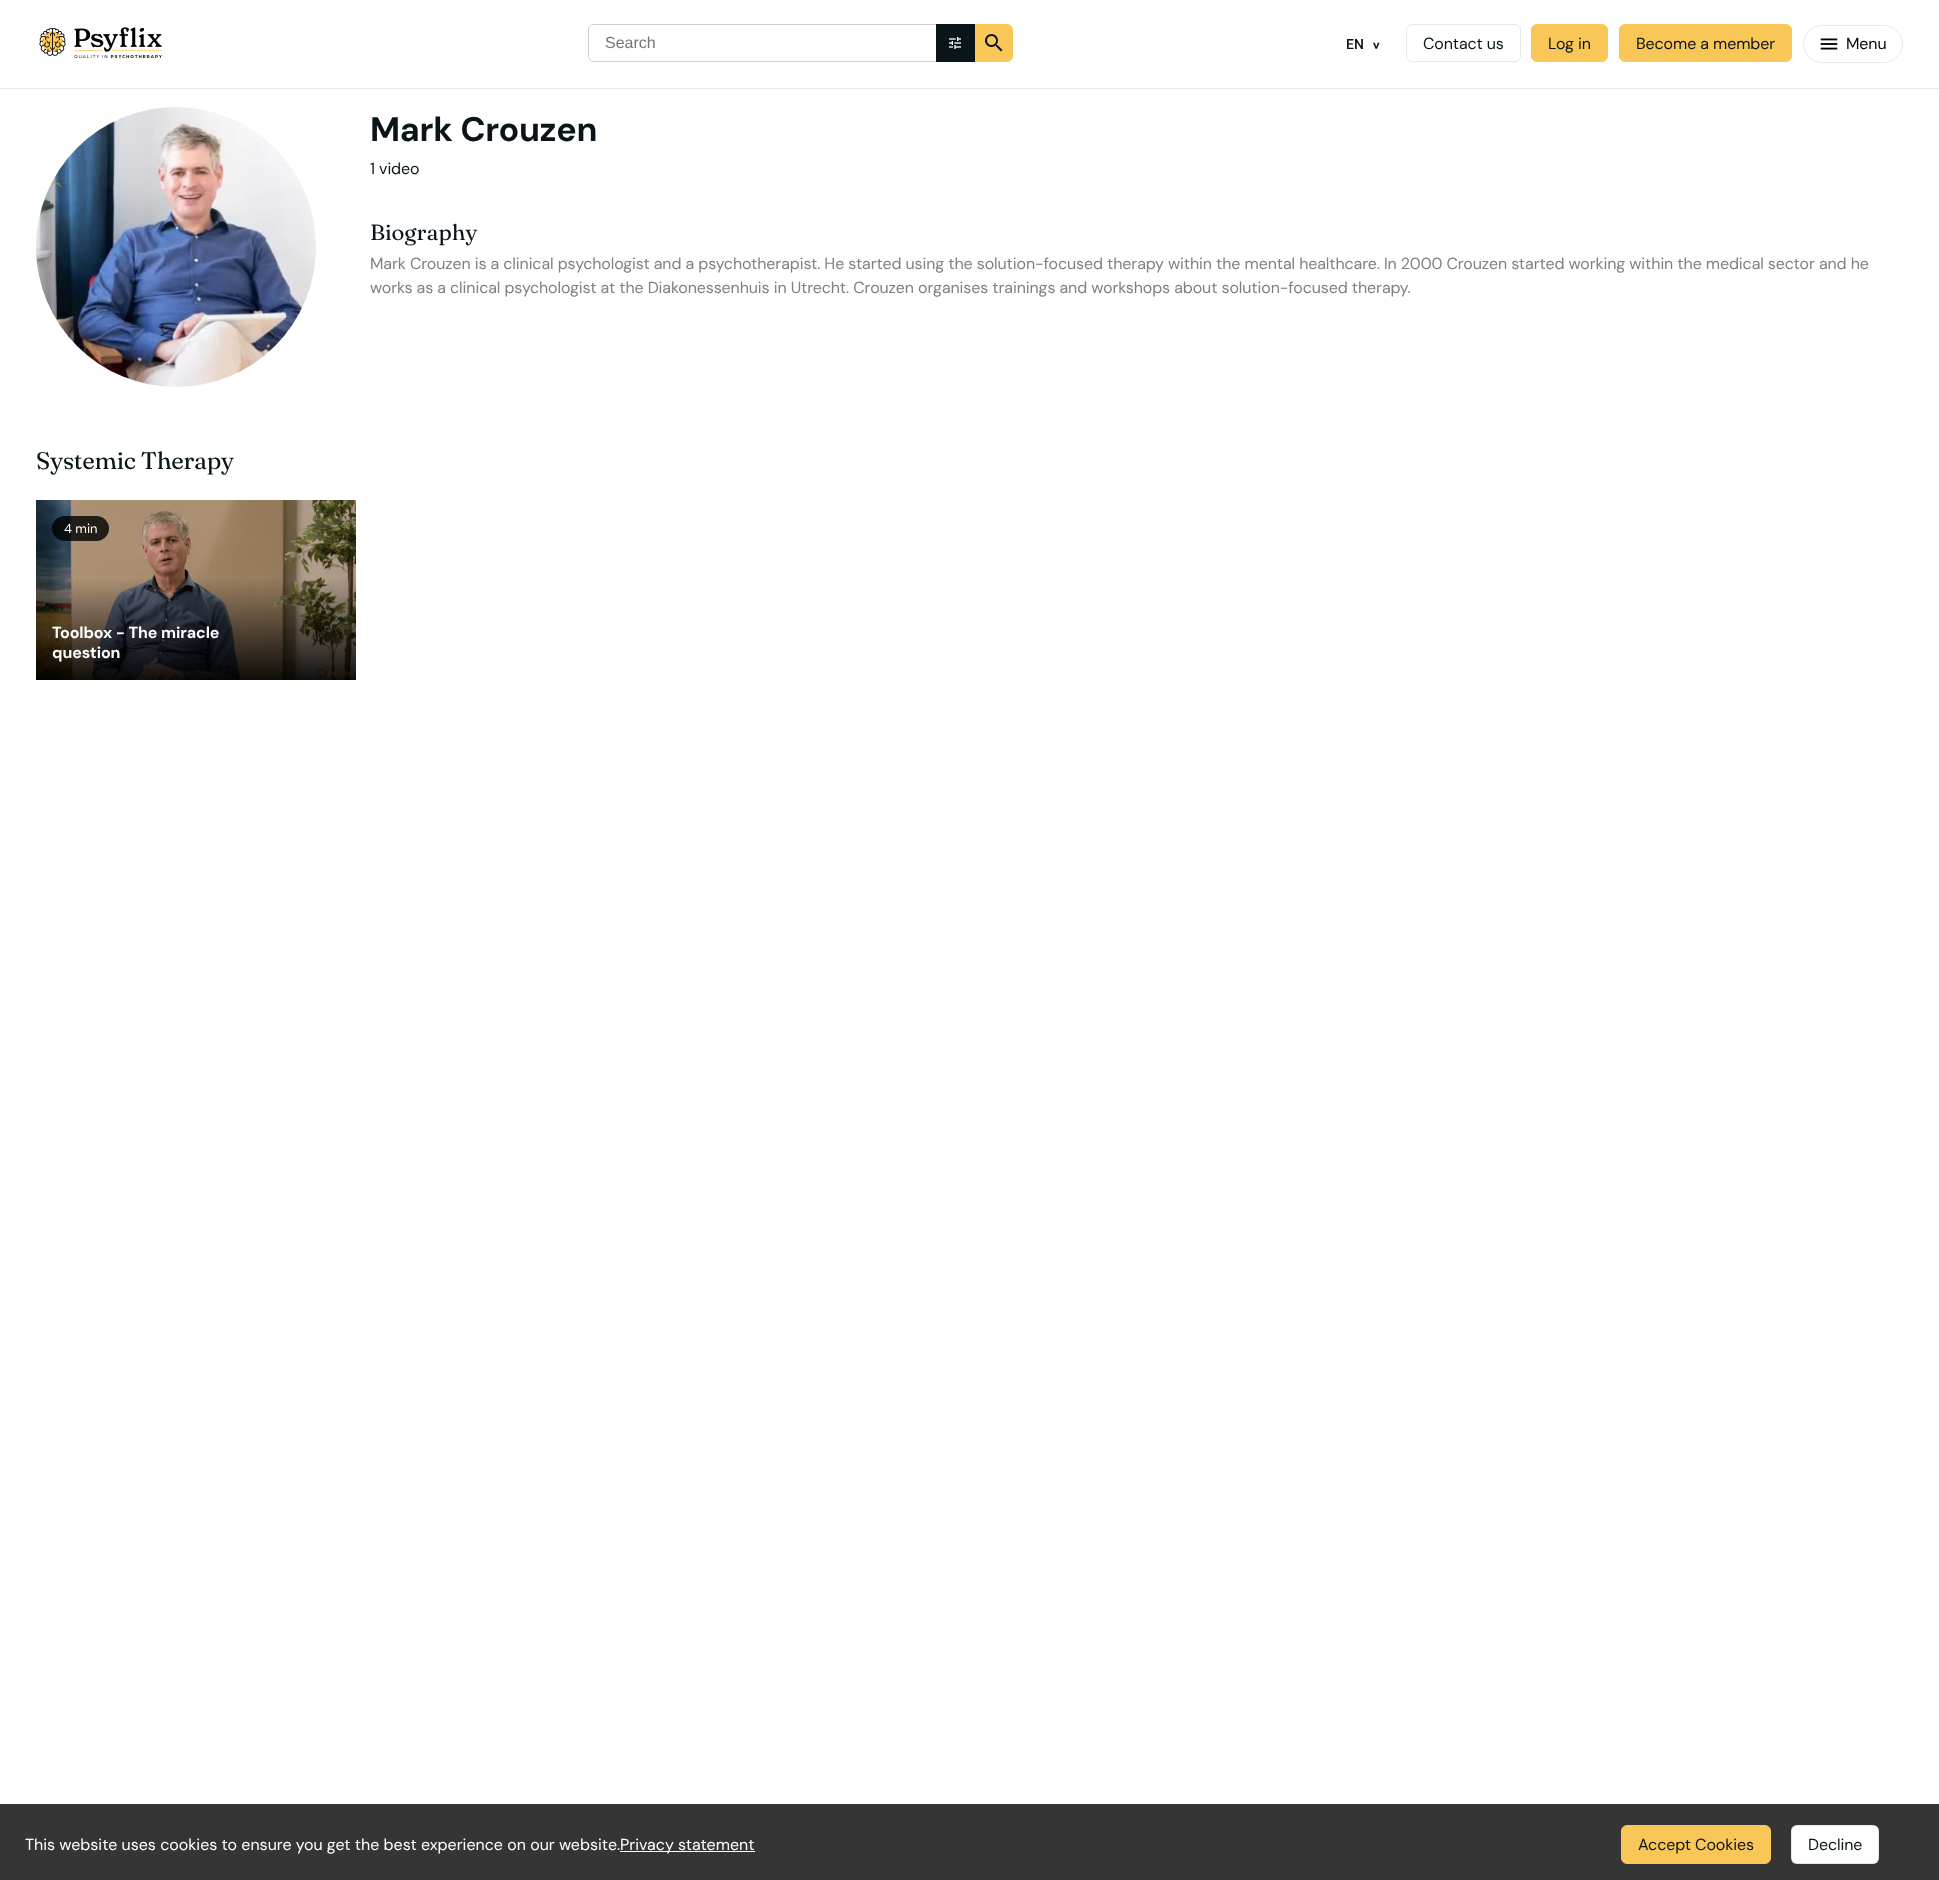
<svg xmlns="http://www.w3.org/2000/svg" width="1939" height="1880">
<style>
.a{font:16px Liberation Sans;fill:#757575}
.b{font:500 14px Roboto;fill:#0a151a}
.c{font:bold 14px Roboto;letter-spacing:-3px;fill:#0a151a}
.d{font:16px DM Sans;letter-spacing:-0.1px;fill:#0a151a}
.e{font:16px DM Sans;letter-spacing:-0.1px;fill:#000}
.f{font:bold 34px DM Sans;letter-spacing:-0.25px;fill:#0a151a}
.g{font:22px Fraunces;fill:#0a151a}
.h{font:16px DM Sans;letter-spacing:-0.1px;fill:#808080}
.i{font:24px Fraunces;letter-spacing:-0.25px;fill:#0a151a}
.j{font:13px DM Sans;fill:#fff}
.k{font:bold 16px DM Sans;letter-spacing:-0.1px;fill:#fff}
.l{font:16px DM Sans;fill:#fff}
</style>
<rect width="100%" height="100%" fill="#fff"/>
<path fill="#e7e8e8" d="M0 88h1939v1H0z"/>
<image href="1.png" x="39" y="27" width="123" height="32"/>
<path fill="#ced0d1" fill-rule="evenodd" d="M594 24h342v38h-342c-3 0-6-3-6-6v-26c0-3 3-6 6-6zm0 1h342v36h-342c-3 0-5-2-5-5v-26c0-3 2-5 5-5z"/>
<path fill="#0a151a" d="M936 24h39v38H936z"/>
<image href="2.png" x="949" y="37" width="12" height="12"/>
<path fill="#f9c758" stroke="#f9c758" d="M975.5 24.5h31.5c3 0 5.5 2.5 5.5 5.5v26c0 3-2.5 5.5-5.5 5.5h-31.5z"/>
<image href="3.png" x="985" y="34" width="18" height="18"/>
<rect fill="none" stroke="#e7e8e8" x="1406.5" y="24.5" width="114" height="37" rx="5.5"/>
<rect fill="#f9c758" stroke="#f9c758" x="1531.5" y="24.5" width="76" height="37" rx="5.5"/>
<rect fill="#f9c758" stroke="#f9c758" x="1619.5" y="24.5" width="172" height="37" rx="5.5"/>
<rect fill="none" stroke="#e7e8e8" x="1803.5" y="25.5" width="99" height="37" rx="18.5"/>
<image href="4.png" x="1820" y="38" width="18" height="12"/>
<image href="5.png" x="36" y="107" width="280" height="280"/>
<image href="6.png" x="36" y="500" width="320" height="180"/>
<rect fill="#000000cc" x="52" y="516" width="57" height="25" rx="12.5"/>
<path fill="#353535" d="M0 1804h1939v76H0z"/>
<path fill="#fff" d="M620 1851h135v1H620z"/>
<rect fill="#f9c758" stroke="#f9c758" x="1621.5" y="1825.5" width="149" height="38" rx="5.5"/>
<rect fill="#fff" x="1791" y="1825" width="88" height="39" rx="6"/>
<rect fill="none" stroke="#0a151a1a" x="1791.5" y="1825.5" width="87" height="38" rx="5.5"/>
<text class="a" x="605" y="48">Search</text>
<text class="b" x="1346" y="49">EN</text>
<text class="c" x="1372" y="42" transform="rotate(90 1372 42)">&gt;</text>
<text class="d" x="1423" y="49">Contact us</text>
<text class="d" x="1548" y="49">Log in</text>
<text class="d" x="1636" y="49">Become a member</text>
<text class="e" x="1846" y="49">Menu</text>
<text class="f" x="370" y="141">Mark Crouzen</text>
<text class="d" x="370" y="174">1 video</text>
<text class="g" x="370" y="240">Biography</text>
<text class="h" x="370" y="269">Mark Crouzen is a clinical psychologist and a psychotherapist. He started using the solution-focused therapy within the mental healthcare. In 2000 Crouzen started working within the medical sector and he</text>
<text class="h" x="370" y="293">works as a clinical psychologist at the Diakonessenhuis in Utrecht. Crouzen organises trainings and workshops about solution-focused therapy.</text>
<text class="i" x="36" y="469">Systemic Therapy</text>
<text class="j" x="64" y="533">4 min</text>
<text class="k" x="52" y="638">Toolbox - The miracle</text>
<text class="k" x="52" y="658">question</text>
<text class="l" x="25" y="1850">This website uses cookies to ensure you get the best experience on our website.</text>
<text class="l" x="620" y="1850">Privacy statement</text>
<text class="d" x="1638" y="1850">Accept Cookies</text>
<text class="d" x="1808" y="1850">Decline</text>
</svg>
